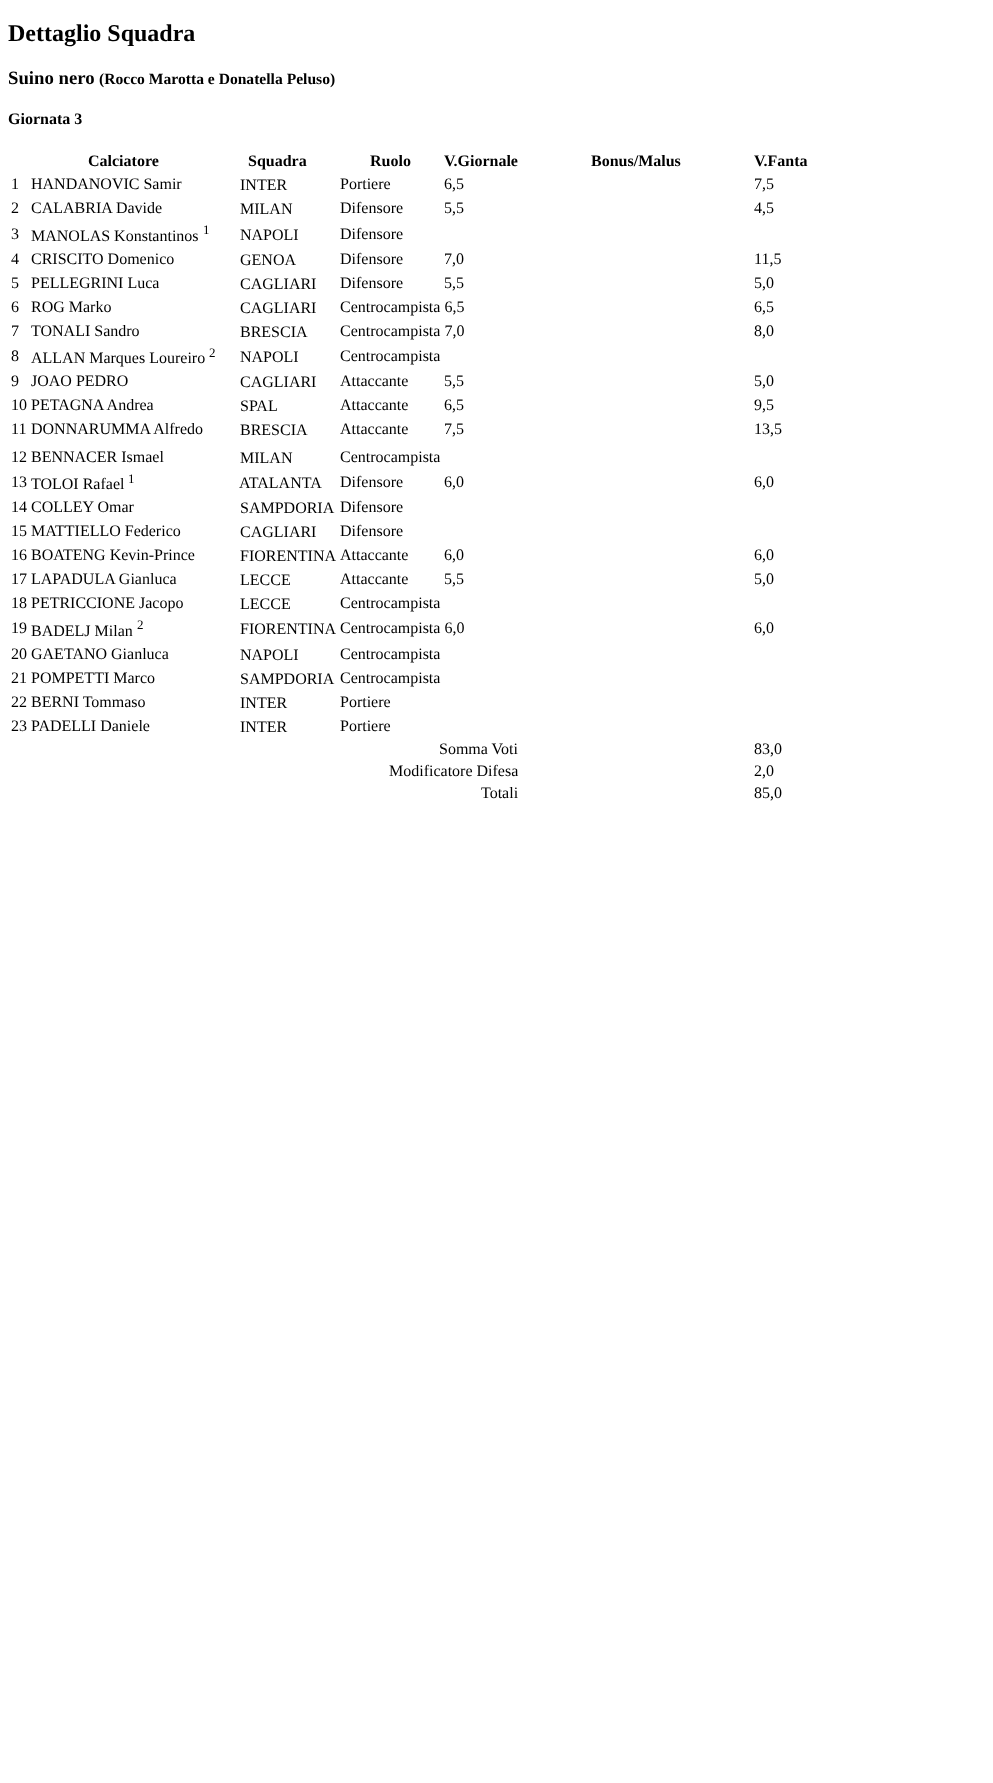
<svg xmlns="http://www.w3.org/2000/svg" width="993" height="1783">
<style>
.a{font:bold 24px Liberation Serif;fill:#000}
.b{font:bold 18.75px Liberation Serif;fill:#000}
.c{font:bold 15.6px Liberation Serif;fill:#000}
.d{font:bold 16px Liberation Serif;fill:#000}
.e{font:16px Liberation Serif;fill:#000}
.f{font:13px Liberation Serif;fill:#000}
</style>
<rect width="100%" height="100%" fill="#fff"/>
<text class="a" x="8" y="41">Dettaglio Squadra</text>
<text class="b" x="8" y="84">Suino nero</text>
<text class="c" x="99" y="84">(Rocco Marotta e Donatella Peluso)</text>
<text class="d" x="8" y="124">Giornata 3</text>
<text class="d" x="88" y="166">Calciatore</text>
<text class="d" x="248" y="166">Squadra</text>
<text class="d" x="370" y="166">Ruolo</text>
<text class="d" x="444" y="166">V.Giornale</text>
<text class="d" x="591" y="166">Bonus/Malus</text>
<text class="d" x="754" y="166">V.Fanta</text>
<text class="e" x="11" y="189">1</text>
<text class="e" x="31" y="189">HANDANOVIC Samir</text>
<text class="e" x="240" y="190">INTER</text>
<text class="e" x="340" y="189">Portiere</text>
<text class="e" x="444" y="189">6,5</text>
<text class="e" x="754" y="189">7,5</text>
<text class="e" x="11" y="213">2</text>
<text class="e" x="31" y="213">CALABRIA Davide</text>
<text class="e" x="240" y="214">MILAN</text>
<text class="e" x="340" y="213">Difensore</text>
<text class="e" x="444" y="213">5,5</text>
<text class="e" x="754" y="213">4,5</text>
<text class="e" x="11" y="239">3</text>
<text class="e" x="31" y="241">MANOLAS Konstantinos</text>
<text class="f" x="203" y="234">1</text>
<text class="e" x="240" y="240">NAPOLI</text>
<text class="e" x="340" y="239">Difensore</text>
<text class="e" x="11" y="264">4</text>
<text class="e" x="31" y="264">CRISCITO Domenico</text>
<text class="e" x="240" y="265">GENOA</text>
<text class="e" x="340" y="264">Difensore</text>
<text class="e" x="444" y="264">7,0</text>
<text class="e" x="754" y="264">11,5</text>
<text class="e" x="11" y="288">5</text>
<text class="e" x="31" y="288">PELLEGRINI Luca</text>
<text class="e" x="240" y="289">CAGLIARI</text>
<text class="e" x="340" y="288">Difensore</text>
<text class="e" x="444" y="288">5,5</text>
<text class="e" x="754" y="288">5,0</text>
<text class="e" x="11" y="312">6</text>
<text class="e" x="31" y="312">ROG Marko</text>
<text class="e" x="240" y="313">CAGLIARI</text>
<text class="e" x="340" y="312">Centrocampista 6,5</text>
<text class="e" x="754" y="312">6,5</text>
<text class="e" x="11" y="336">7</text>
<text class="e" x="31" y="336">TONALI Sandro</text>
<text class="e" x="240" y="337">BRESCIA</text>
<text class="e" x="340" y="336">Centrocampista 7,0</text>
<text class="e" x="754" y="336">8,0</text>
<text class="e" x="11" y="361">8</text>
<text class="e" x="31" y="363">ALLAN Marques Loureiro</text>
<text class="f" x="209" y="357">2</text>
<text class="e" x="240" y="362">NAPOLI</text>
<text class="e" x="340" y="361">Centrocampista</text>
<text class="e" x="11" y="386">9</text>
<text class="e" x="31" y="386">JOAO PEDRO</text>
<text class="e" x="240" y="387">CAGLIARI</text>
<text class="e" x="340" y="386">Attaccante</text>
<text class="e" x="444" y="386">5,5</text>
<text class="e" x="754" y="386">5,0</text>
<text class="e" x="11" y="410">10 PETAGNA Andrea</text>
<text class="e" x="240" y="411">SPAL</text>
<text class="e" x="340" y="410">Attaccante</text>
<text class="e" x="444" y="410">6,5</text>
<text class="e" x="754" y="410">9,5</text>
<text class="e" x="11" y="434">11</text>
<text class="e" x="31" y="434">DONNARUMMA Alfredo</text>
<text class="e" x="240" y="435">BRESCIA</text>
<text class="e" x="340" y="434">Attaccante</text>
<text class="e" x="444" y="434">7,5</text>
<text class="e" x="754" y="434">13,5</text>
<text class="e" x="11" y="462">12 BENNACER Ismael</text>
<text class="e" x="240" y="463">MILAN</text>
<text class="e" x="340" y="462">Centrocampista</text>
<text class="e" x="11" y="487">13</text>
<text class="e" x="31" y="489">TOLOI Rafael</text>
<text class="f" x="128" y="483">1</text>
<text class="e" x="239" y="488">ATALANTA</text>
<text class="e" x="340" y="487">Difensore</text>
<text class="e" x="444" y="487">6,0</text>
<text class="e" x="754" y="487">6,0</text>
<text class="e" x="11" y="512">14 COLLEY Omar</text>
<text class="e" x="240" y="513">SAMPDORIA</text>
<text class="e" x="340" y="512">Difensore</text>
<text class="e" x="11" y="536">15 MATTIELLO Federico</text>
<text class="e" x="240" y="537">CAGLIARI</text>
<text class="e" x="340" y="536">Difensore</text>
<text class="e" x="11" y="560">16 BOATENG Kevin-Prince</text>
<text class="e" x="240" y="561">FIORENTINA</text>
<text class="e" x="340" y="560">Attaccante</text>
<text class="e" x="444" y="560">6,0</text>
<text class="e" x="754" y="560">6,0</text>
<text class="e" x="11" y="584">17 LAPADULA Gianluca</text>
<text class="e" x="240" y="585">LECCE</text>
<text class="e" x="340" y="584">Attaccante</text>
<text class="e" x="444" y="584">5,5</text>
<text class="e" x="754" y="584">5,0</text>
<text class="e" x="11" y="608">18 PETRICCIONE Jacopo</text>
<text class="e" x="240" y="609">LECCE</text>
<text class="e" x="340" y="608">Centrocampista</text>
<text class="e" x="11" y="633">19</text>
<text class="e" x="31" y="636">BADELJ Milan</text>
<text class="f" x="137" y="629">2</text>
<text class="e" x="240" y="634">FIORENTINA</text>
<text class="e" x="340" y="633">Centrocampista 6,0</text>
<text class="e" x="754" y="633">6,0</text>
<text class="e" x="11" y="659">20 GAETANO Gianluca</text>
<text class="e" x="240" y="660">NAPOLI</text>
<text class="e" x="340" y="659">Centrocampista</text>
<text class="e" x="11" y="683">21 POMPETTI Marco</text>
<text class="e" x="240" y="684">SAMPDORIA</text>
<text class="e" x="340" y="683">Centrocampista</text>
<text class="e" x="11" y="707">22 BERNI Tommaso</text>
<text class="e" x="240" y="708">INTER</text>
<text class="e" x="340" y="707">Portiere</text>
<text class="e" x="11" y="731">23 PADELLI Daniele</text>
<text class="e" x="240" y="732">INTER</text>
<text class="e" x="340" y="731">Portiere</text>
<text class="e" x="439" y="754">Somma Voti</text>
<text class="e" x="754" y="754">83,0</text>
<text class="e" x="389" y="776">Modificatore Difesa</text>
<text class="e" x="754" y="776">2,0</text>
<text class="e" x="481" y="798">Totali</text>
<text class="e" x="754" y="798">85,0</text>
</svg>
